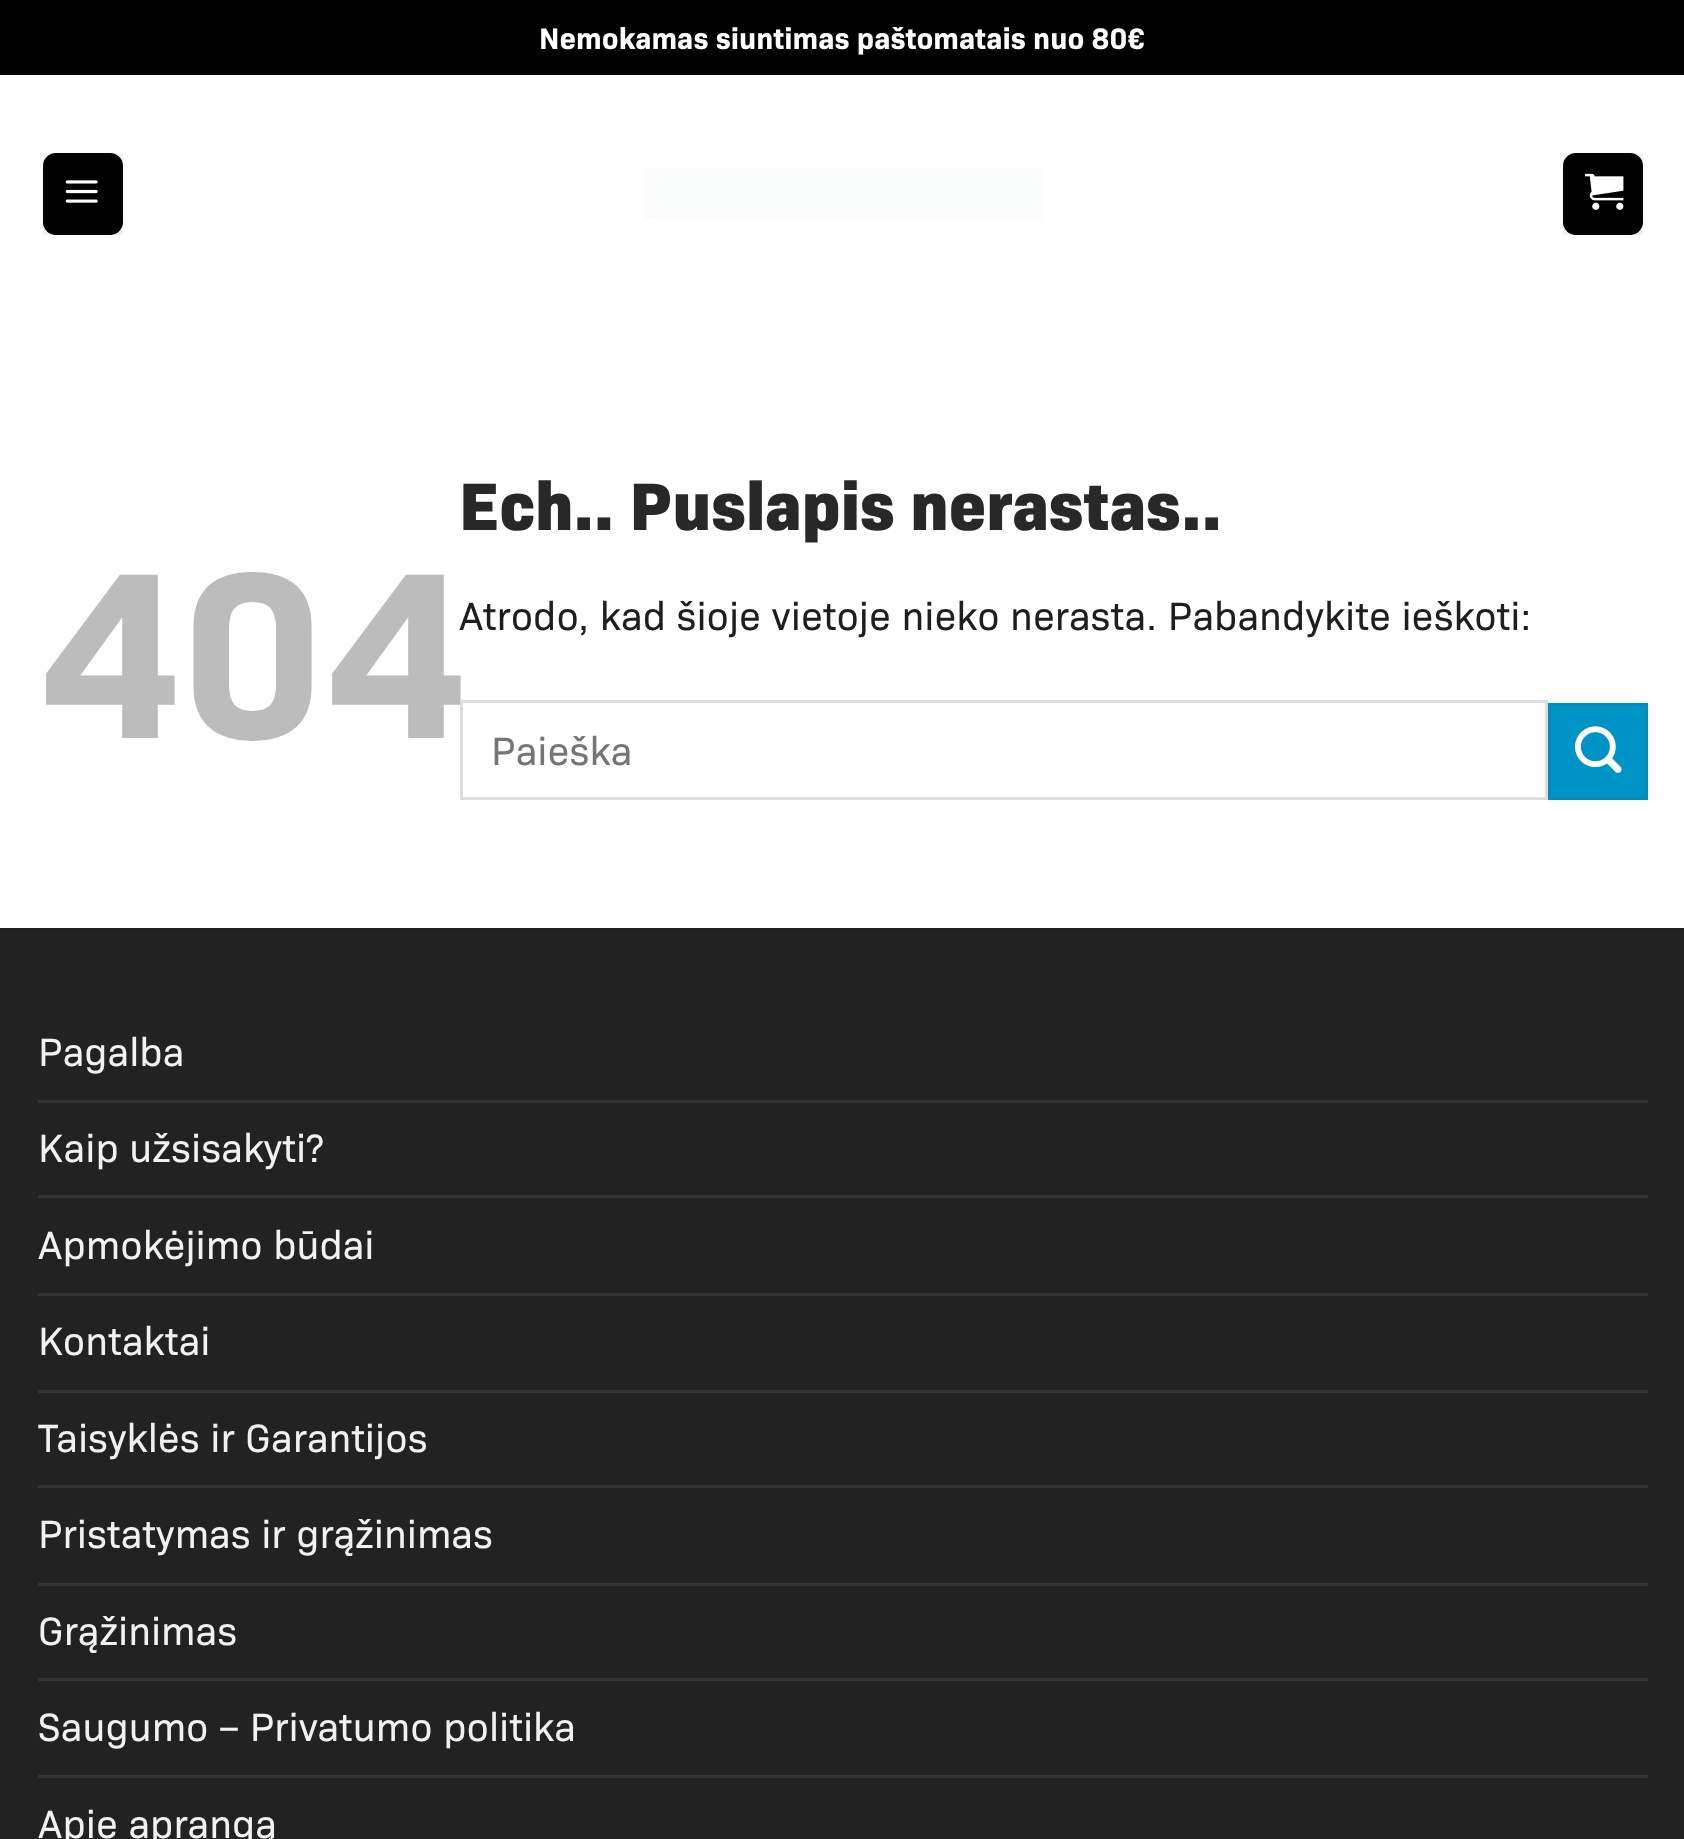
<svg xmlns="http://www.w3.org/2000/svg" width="1684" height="1839">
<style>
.a{font:bold 30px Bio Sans;fill:#fff}
.b{font:bold 240px Bio Sans;fill:#bcbcbc}
.c{font:800 68px Bio Sans;fill:#282828}
.d{font:40px Bio Sans;fill:#1e1e1e}
.e{font:40px Bio Sans;fill:#757575}
.f{font:40px Bio Sans;fill:#f1f1f1}
</style>
<rect width="100%" height="100%" fill="#fff"/>
<path fill="#000" d="M0 0h1684v75H0z"/>
<rect fill="#000" x="43" y="153" width="80" height="82" rx="13"/>
<path fill="none" stroke="#0000000d" stroke-width="3" d="M44.5 154.5h77v79H44.5z"/>
<image href="1.png" x="65" y="180" width="33" height="23"/>
<path fill="#fafbfb" d="M643 168h399v51H643z"/>
<rect fill="#000" x="1563" y="153" width="80" height="82" rx="13"/>
<path fill="none" stroke="#0000000d" stroke-width="3" d="M1564.5 154.5h77v79H1564.5z"/>
<image href="2.png" x="1585" y="173" width="39" height="37"/>
<path fill="#0094c6" stroke="#008dbc" stroke-width="3" d="M1549.5 704.5h97v94H1549.5z"/>
<image href="3.png" x="1575" y="726" width="47" height="47"/>
<path fill="#222" d="M0 931h1684v908H0z"/>
<path fill="#202020" d="M0 928h1684v3H0z"/>
<path fill="#343434" d="M38 1100h1610v3H38z"/>
<path fill="#343434" d="M38 1195h1610v3H38z"/>
<path fill="#343434" d="M38 1293h1610v3H38z"/>
<path fill="#343434" d="M38 1390h1610v3H38z"/>
<path fill="#343434" d="M38 1485h1610v3H38z"/>
<path fill="#343434" d="M38 1583h1610v3H38z"/>
<path fill="#343434" d="M38 1678h1610v3H38z"/>
<path fill="#343434" d="M38 1775h1610v3H38z"/>
<text class="a" x="539" y="49">Nemokamas siuntimas paštomatais nuo 80€</text>
<text class="b" x="38" y="738">404</text>
<text class="c" x="459" y="530">Ech.. Puslapis nerastas..</text>
<text class="d" x="459" y="630">Atrodo, kad šioje vietoje nieko nerasta. Pabandykite ieškoti:</text>
<path fill="none" stroke="#ddd" stroke-width="3" d="M461.5 701.5h1085v97H461.5z"/>
<text class="e" x="491" y="765">Paieška</text>
<text class="f" x="38" y="1066">Pagalba</text>
<text class="f" x="38" y="1162">Kaip užsisakyti?</text>
<text class="f" x="38" y="1259">Apmokėjimo būdai</text>
<text class="f" x="38" y="1355">Kontaktai</text>
<text class="f" x="38" y="1452">Taisyklės ir Garantijos</text>
<text class="f" x="38" y="1548">Pristatymas ir grąžinimas</text>
<text class="f" x="38" y="1645">Grąžinimas</text>
<text class="f" x="38" y="1741">Saugumo – Privatumo politika</text>
<text class="f" x="38" y="1838">Apie aprangą</text>
</svg>
